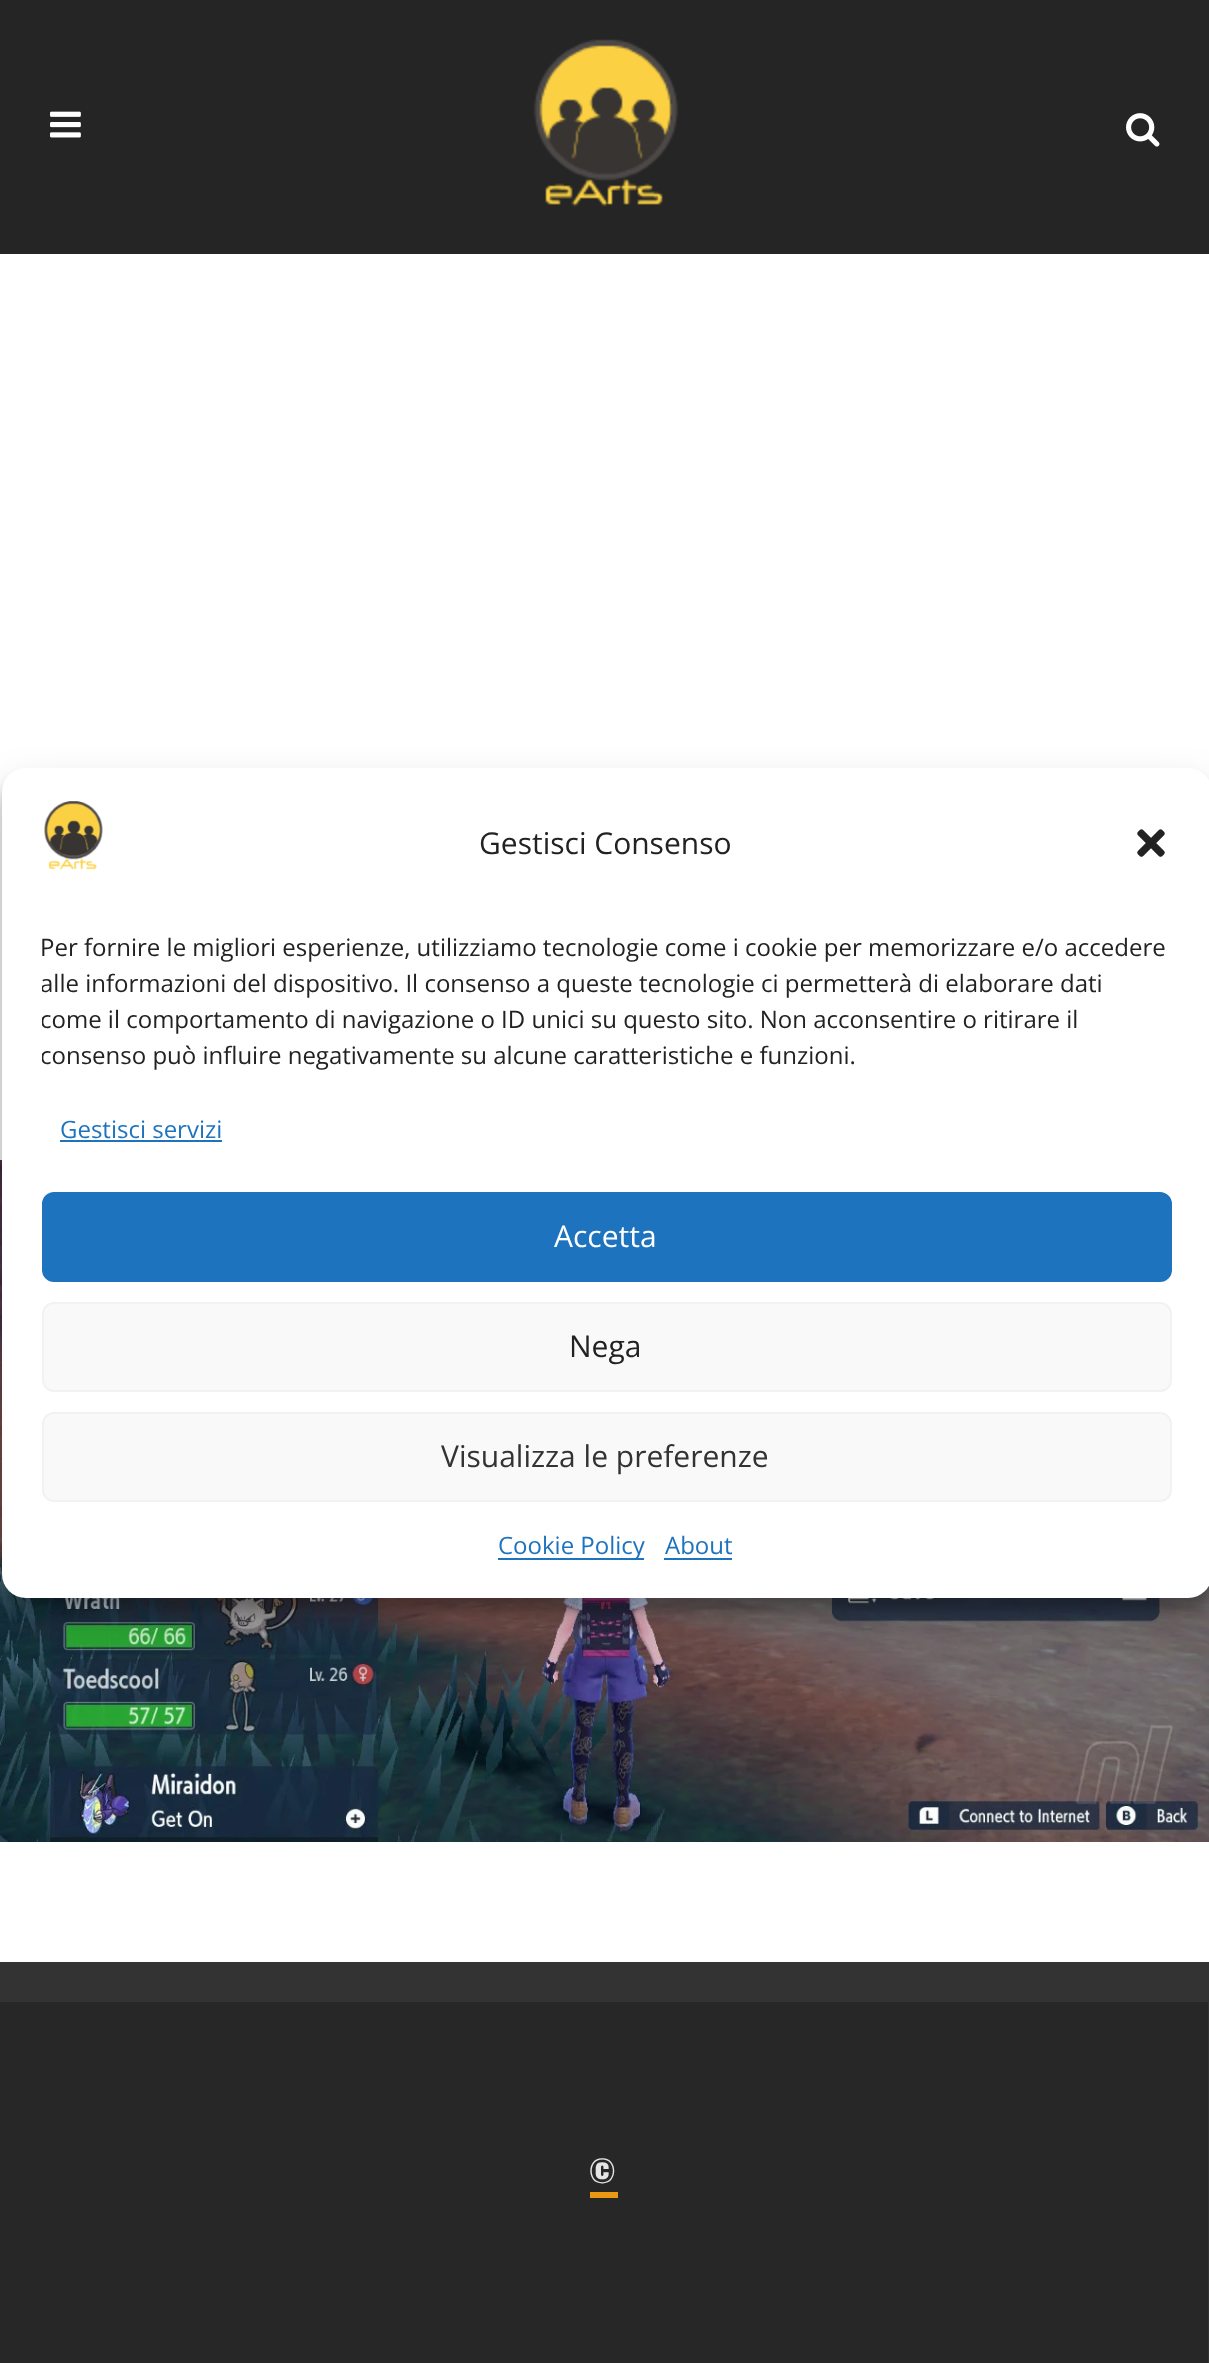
<svg xmlns="http://www.w3.org/2000/svg" width="1209" height="2363">
<style>
.a{font:30px Open Sans;fill:#222}
.b{font:24px Open Sans;fill:#222}
.c{font:24px Open Sans;fill:#1e73be}
.d{font:30px Open Sans;fill:#fff}
.e{font:30px Open Sans;fill:#333}
.f{font:bold 30px Oswald;letter-spacing:3px;fill:#e5e5e5}
</style>
<defs>
<clipPath id="clip1"><path d="M42 930h1130v154H42z"/></clipPath>
</defs>
<rect width="100%" height="100%" fill="#fff"/>
<image href="6.png" x="0" y="1160" width="1209" height="682"/>
<rect fill="#0000003b" filter="blur(6px)" x="2" y="780" width="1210" height="830" rx="24"/>
<rect fill="#00000030" filter="blur(20px)" x="2" y="788" width="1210" height="830" rx="24"/>
<rect fill="#fff" x="2" y="768" width="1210" height="830" rx="24"/>
<image href="1.png" x="44" y="801" width="59" height="69"/>
<image href="2.png" x="1137" y="829" width="28" height="28"/>
<path fill="#1e73be" d="M60 1140h162v2H60z"/>
<rect fill="#1e73be" stroke="#1e73be" stroke-width="2" x="43" y="1193" width="1128" height="88" rx="11"/>
<rect fill="#f9f9f9" stroke="#f2f2f2" stroke-width="2" x="43" y="1303" width="1128" height="88" rx="11"/>
<rect fill="#f9f9f9" stroke="#f2f2f2" stroke-width="2" x="43" y="1413" width="1128" height="88" rx="11"/>
<path fill="#1e73be" d="M498 1558h146v2H498z"/>
<path fill="#1e73be" d="M664 1558h68v2H664z"/>
<path fill="#252525" d="M0 0h1209v254H0z"/>
<image href="3.png" x="50" y="111" width="31" height="27"/>
<image href="4.png" x="533" y="39" width="146" height="168"/>
<image href="5.png" x="1126" y="113" width="34" height="34"/>
<path fill="#333" d="M0 1962h1209v40H0z"/>
<path fill="#272727" d="M0 2002h1208v361H0z"/>
<path fill="#333" d="M1208 2002h1v361H1208z"/>
<path fill="#eb9812" d="M590 2192h28v6H590z"/>
<text class="a" x="479" y="854">Gestisci Consenso</text>
<text class="b" x="40" y="956">Per fornire le migliori esperienze, utilizziamo tecnologie come i cookie per memorizzare e/o accedere</text>
<g clip-path="url(#clip1)">
<text class="b" x="40" y="992">alle informazioni del dispositivo. Il consenso a queste tecnologie ci permetterà di elaborare dati</text>
<text class="b" x="40" y="1028">come il comportamento di navigazione o ID unici su questo sito. Non acconsentire o ritirare il</text>
<text class="b" x="40" y="1064">consenso può influire negativamente su alcune caratteristiche e funzioni.</text>
</g>
<text class="c" x="60" y="1138">Gestisci servizi</text>
<text class="d" x="554" y="1247">Accetta</text>
<text class="a" x="569" y="1357">Nega</text>
<text class="e" x="441" y="1467">Visualizza le preferenze</text>
<text class="c" x="498" y="1554">Cookie Policy</text>
<text class="c" x="665" y="1554">About</text>
<text class="f" x="589" y="2183">©</text>
</svg>
